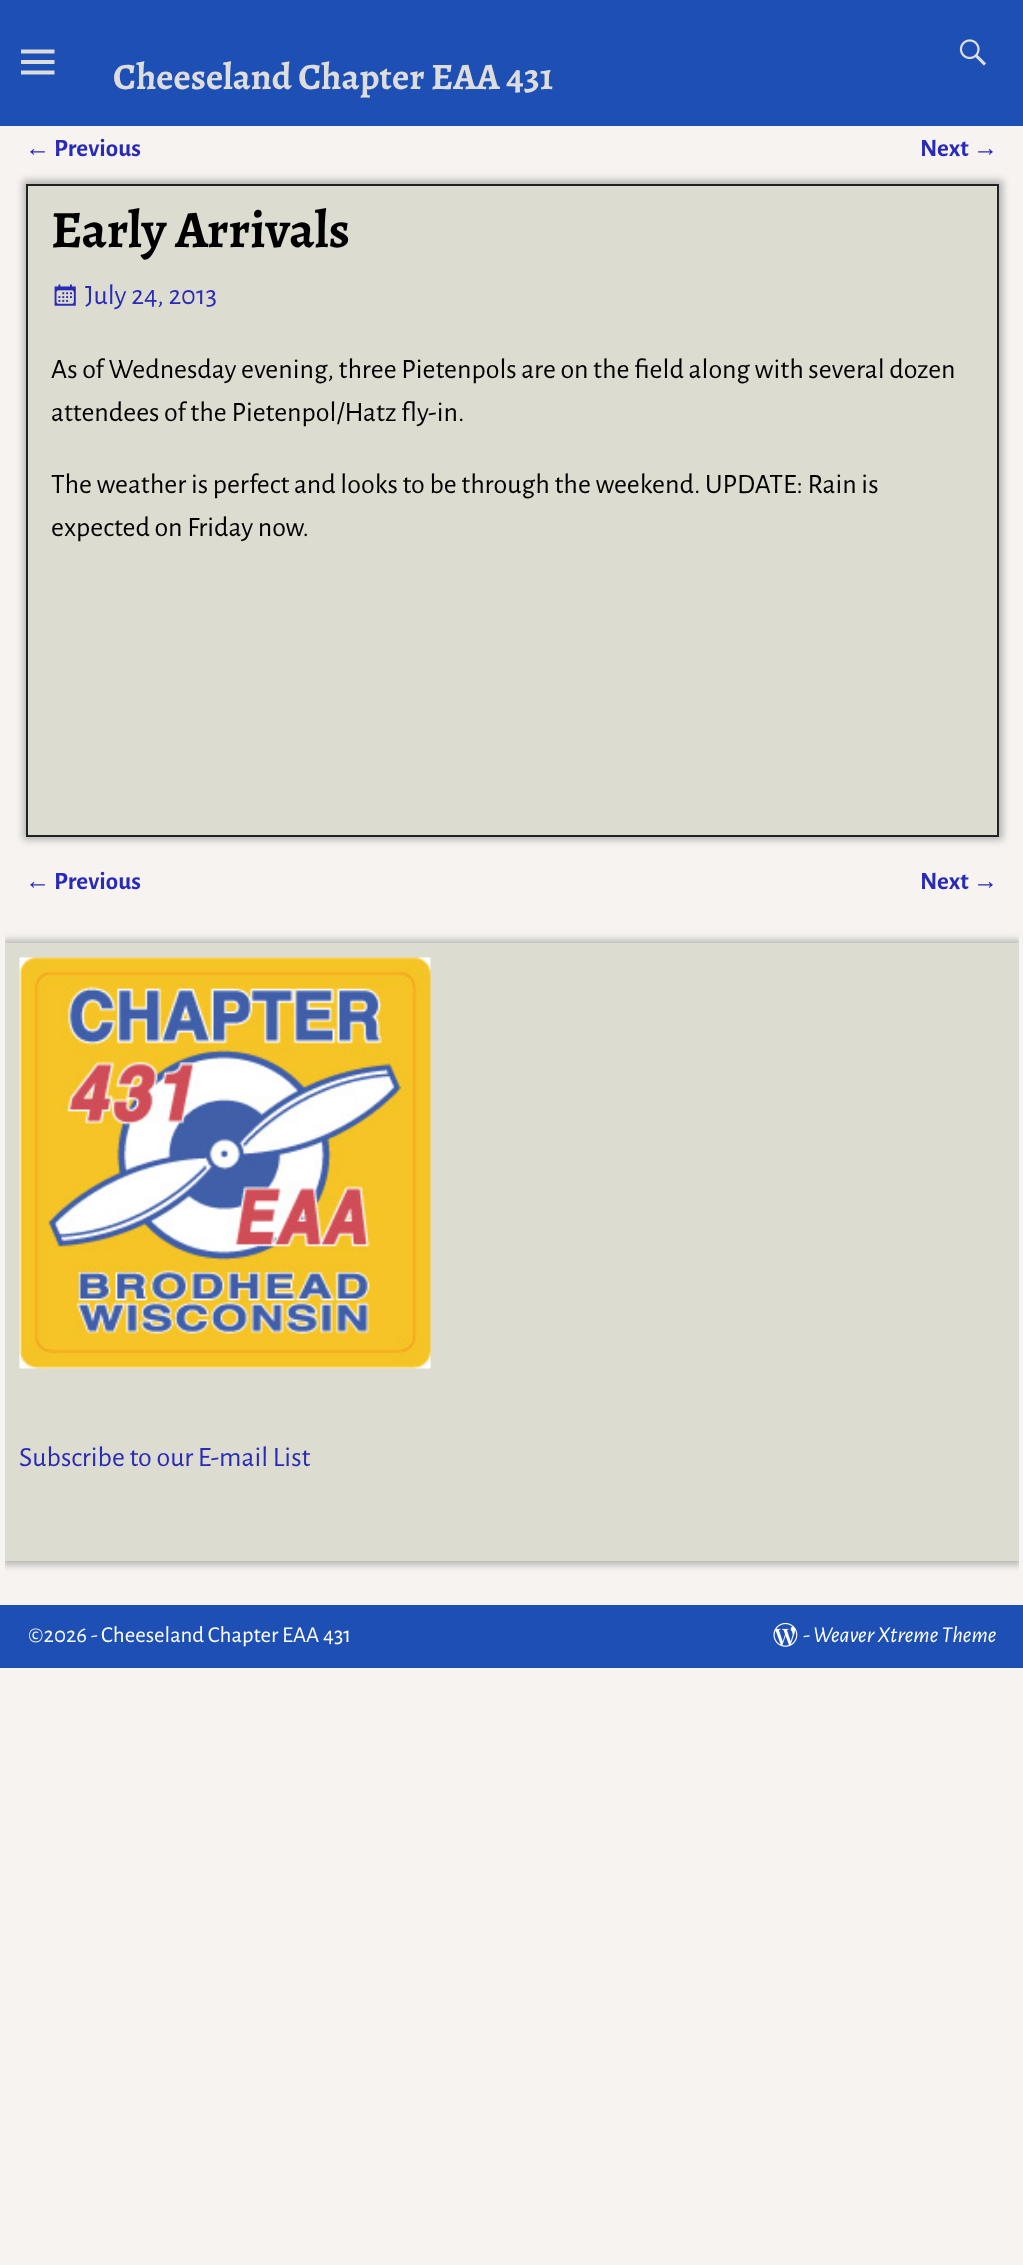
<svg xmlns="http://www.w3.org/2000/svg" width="1023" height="2265">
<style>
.a{font:bold 37.25px Alegreya;fill:#ddd}
.b{font:25px Liberation Sans;fill:#2a2ab8}
.c{font:bold 25px Alegreya Sans;fill:#2a2ab8}
.d{font:bold 52.5px Alegreya;fill:#000}
.e{font:28px Alegreya Sans;fill:#2a2ab8}
.f{font:28px Alegreya Sans;fill:#000}
.g{font:22.75px Alegreya Sans;fill:#f9f9f9}
.h{font:22.75px Alegreya Sans;fill:#fff}
.i{font:italic 22.75px Alegreya Sans;fill:#fff}
</style>
<defs>
<clipPath id="clip1"><path d="M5 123h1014v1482H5z"/></clipPath>
</defs>
<rect width="100%" height="100%" fill="#f6f3f0"/>
<path fill="#1d4fb5" d="M0 0h1023v126H0z"/>
<path fill="#ddd" d="M21 74.5v-4h33.5v4zm0-25h33.5v4h-33.5zm0 14.5v-4h33.5v4z"/>
<image href="1.png" x="959" y="39" width="27" height="27"/>
<path fill="#00000040" filter="blur(3.5px)" d="M23 180h980v660H23z"/>
<path fill="#dddcd0" stroke="#222" stroke-width="2" d="M27 185h971v651H27z"/>
<image href="2.png" x="54" y="284" width="22" height="22"/>
<g clip-path="url(#clip1)">
<path fill="#00000040" filter="blur(3.5px)" d="M2 940h1020v625H2z"/>
</g>
<path fill="#dddcd0" d="M5 943h1014v618H5z"/>
<image href="3.png" x="19" y="957" width="412" height="412"/>
<path fill="#1d4fb5" d="M0 1605h1023v63H0z"/>
<image href="4.png" x="773" y="1622" width="25" height="25"/>
<text class="a" x="113" y="89">Cheeseland Chapter EAA 431</text>
<text class="b" x="25" y="156">←</text>
<text class="c" x="54" y="156">Previous</text>
<text class="c" x="920" y="156">Next</text>
<text class="b" x="973" y="156">→</text>
<text class="d" x="51" y="247">Early Arrivals</text>
<text class="e" x="85" y="304">July 24, 2013</text>
<text class="f" x="51" y="378">As of Wednesday evening, three Pietenpols are on the field along with several dozen</text>
<text class="f" x="51" y="421">attendees of the Pietenpol/Hatz fly-in.</text>
<text class="f" x="51" y="493">The weather is perfect and looks to be through the weekend. UPDATE: Rain is</text>
<text class="f" x="51" y="536">expected on Friday now.</text>
<text class="b" x="25" y="889">←</text>
<text class="c" x="54" y="889">Previous</text>
<text class="c" x="920" y="889">Next</text>
<text class="b" x="973" y="889">→</text>
<text class="e" x="19" y="1466">Subscribe to our E-mail List</text>
<text class="g" x="28" y="1642">©2026 -</text>
<text class="h" x="101" y="1642">Cheeseland Chapter EAA 431</text>
<text class="i" x="803" y="1642">- Weaver Xtreme Theme</text>
</svg>
